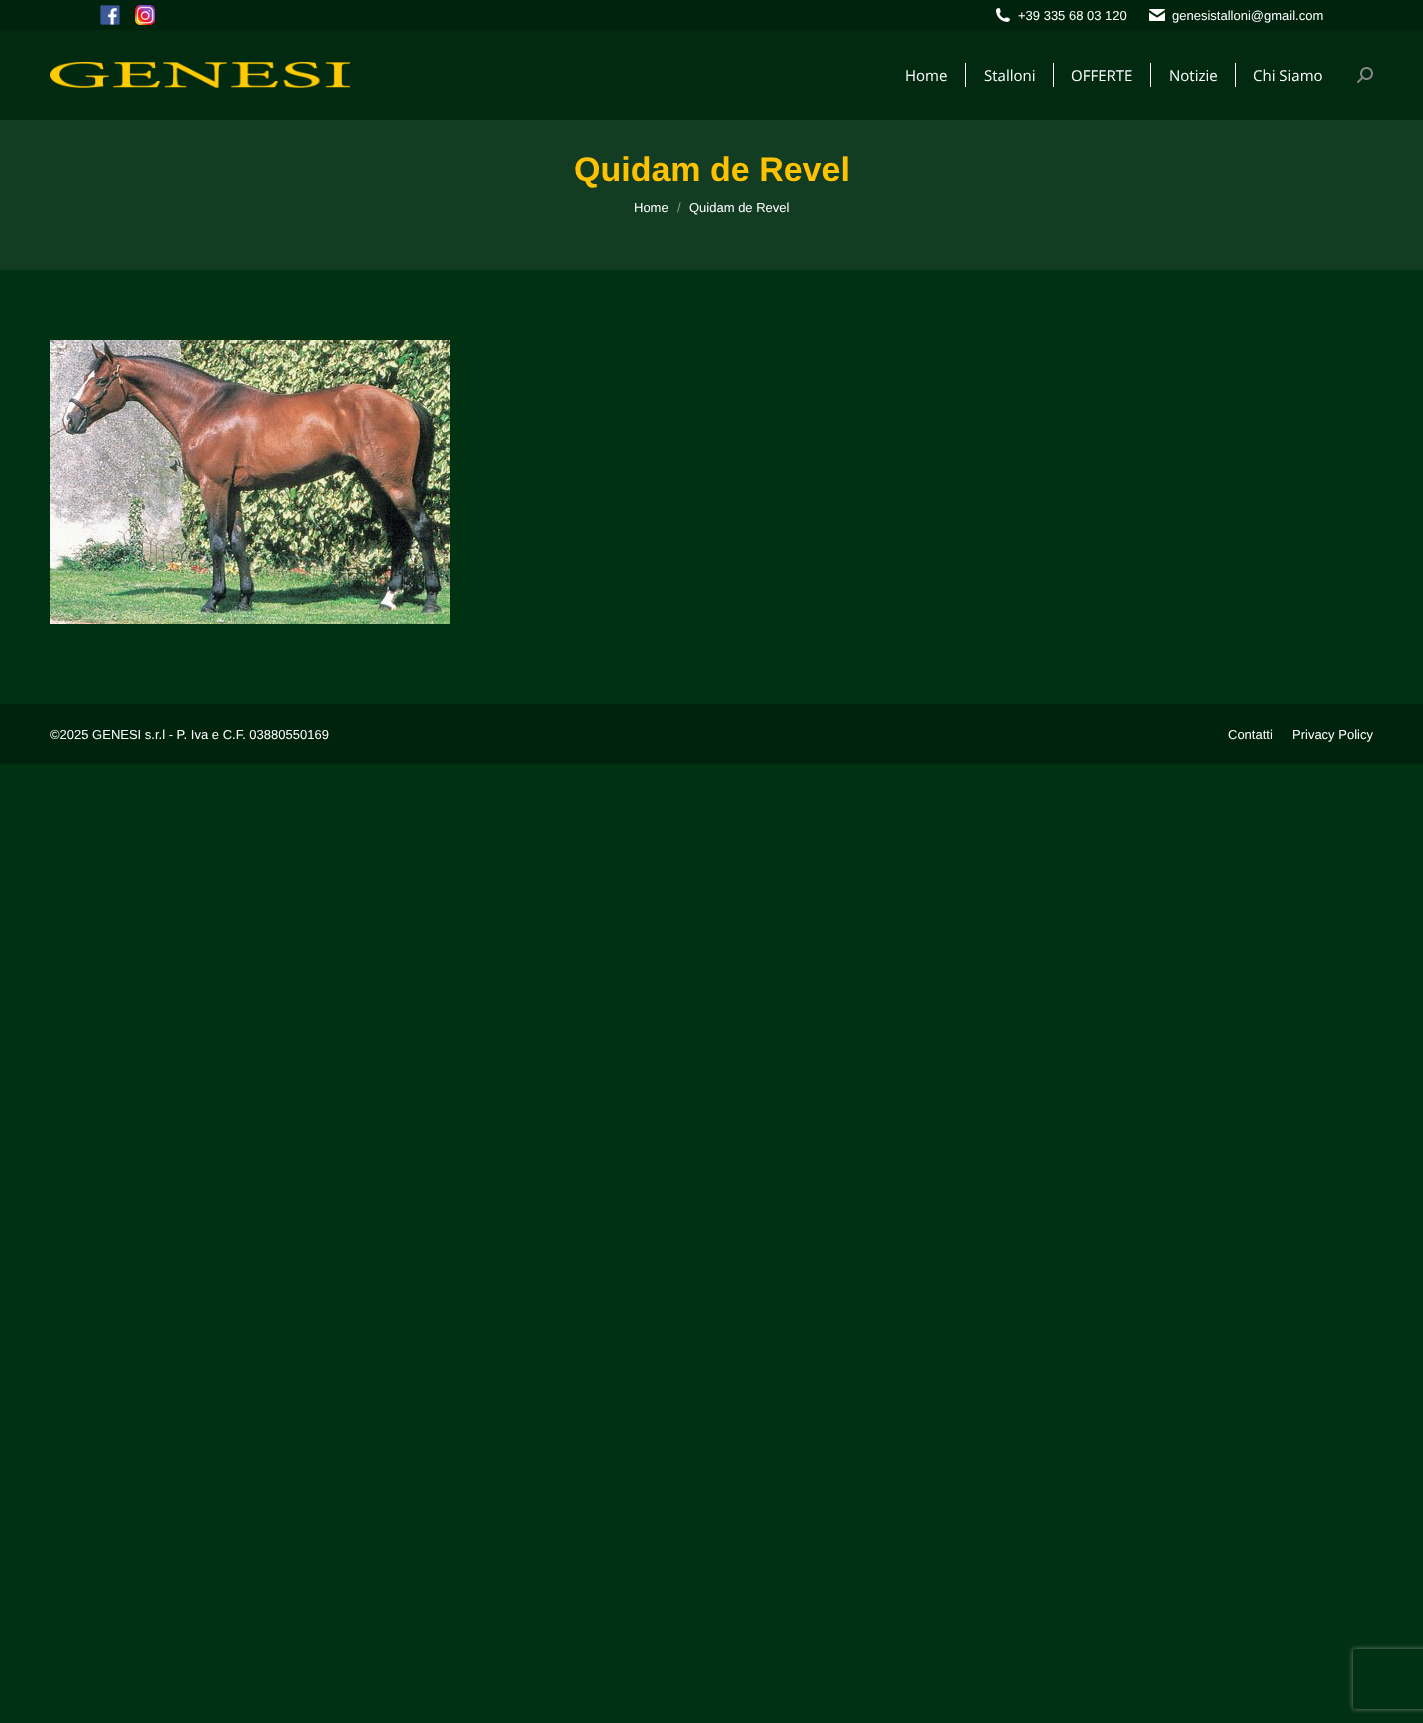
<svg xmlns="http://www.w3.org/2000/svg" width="1423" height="1723">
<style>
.a{font:13px Liberation Sans;fill:#fff}
.b{font:15px Open Sans;fill:#fff}
.c{font:bold 34px Liberation Sans;fill:#ffc200}
.d{font:13px Liberation Sans;fill:#899e91}
</style>
<defs>
<clipPath id="clip1"><path d="M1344 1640h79v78h-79zm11 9h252c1 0 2 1 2 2v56c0 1-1 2-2 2h-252c-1 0-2-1-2-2v-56c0-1 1-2 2-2z" clip-rule="evenodd"/></clipPath>
</defs>
<rect width="100%" height="100%" fill="#013113"/>
<path fill="#012a10" d="M0 30h1423v90H0z"/>
<path fill="#00230d" d="M0 0h1423v30H0z"/>
<image href="1.png" x="100" y="5" width="20" height="20"/>
<image href="2.png" x="135" y="5" width="20" height="20"/>
<image href="3.png" x="996" y="8" width="14" height="14"/>
<image href="4.png" x="1149" y="9" width="16" height="12"/>
<image href="5.png" x="50" y="62" width="300" height="26"/>
<path fill="#fff" d="M965 63h1v24H965z"/>
<path fill="#fff" d="M1053 63h1v24H1053z"/>
<path fill="#fff" d="M1150 63h1v24H1150z"/>
<path fill="#fff" d="M1235 63h1v24H1235z"/>
<image href="6.png" x="1357" y="67" width="16" height="16"/>
<path fill="#123d22" d="M0 120h1423v150H0z"/>
<image href="7.png" x="50" y="340" width="400" height="284"/>
<path fill="#00230d" d="M0 704h1423v60H0z"/>
<g clip-path="url(#clip1)">
<rect fill="#808080" filter="blur(2.5px)" x="1353" y="1649" width="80" height="60" rx="2"/>
</g>
<text class="a" x="1018" y="20">+39 335 68 03 120</text>
<text class="a" x="1172" y="20">genesistalloni@gmail.com</text>
<text class="b" x="905" y="81">Home</text>
<text class="b" x="984" y="81">Stalloni</text>
<text class="b" x="1071" y="81">OFFERTE</text>
<text class="b" x="1169" y="81">Notizie</text>
<text class="b" x="1253" y="81">Chi Siamo</text>
<text class="c" x="574" y="181">Quidam de Revel</text>
<text class="a" x="634" y="212">Home</text>
<text class="d" x="677" y="212">/</text>
<text class="a" x="689" y="212">Quidam de Revel</text>
<text class="a" x="50" y="739">©2025 GENESI s.r.l - P. Iva e C.F. 03880550169</text>
<text class="a" x="1228" y="739">Contatti</text>
<text class="a" x="1292" y="739">Privacy Policy</text>
</svg>
